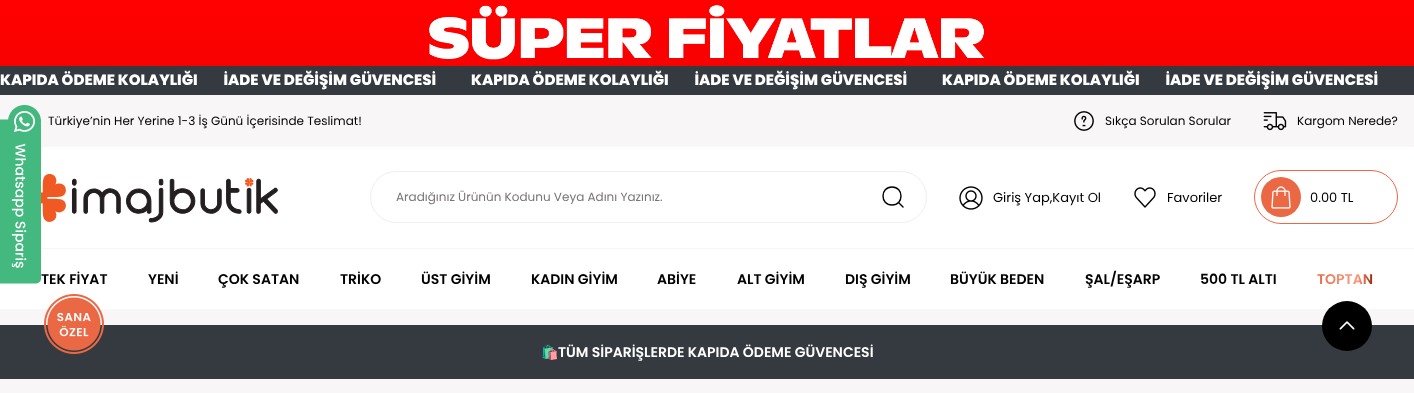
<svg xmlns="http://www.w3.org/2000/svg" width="1414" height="393">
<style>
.a{font:800 15px Poppins;fill:#fff}
.b{font:12px Poppins;fill:#000}
.c{font:12px Poppins;fill:#7a7474}
.d{font:13px Poppins;fill:#000}
.e{font:600 14px Poppins;fill:#000}
.f{font:600 14px Poppins;fill:url(#g1)}
.g{font:bold 14px Noto Color Emoji;fill:#fff}
.h{font:600 14px Poppins;fill:#fff}
</style>
<defs>
<linearGradient id="g1" gradientUnits="userSpaceOnUse" x1="1317" y1="279" x2="1373" y2="279"><stop offset="0" stop-color="#eb6844"/><stop offset="0.33" stop-color="#ed896e"/><stop offset="0.74" stop-color="#ff977a"/><stop offset="1" stop-color="#9b2201"/></linearGradient>
</defs>
<rect width="100%" height="100%" fill="#f8f6f7"/>
<image href="1.png" x="0" y="0" width="1414" height="66"/>
<path fill="#343a40" d="M0 66h1414v29H0z"/>
<image href="2.png" x="1074" y="111" width="20" height="20"/>
<image href="3.png" x="1263" y="112" width="24" height="19"/>
<path fill="#fff" d="M41 147h1373v101H41z"/>
<image href="4.png" x="41" y="174" width="237" height="49"/>
<rect fill="none" stroke="#f1eef0" x="370.5" y="171.5" width="556" height="51" rx="25.5"/>
<path fill="none" stroke="#000" stroke-width="1.4" stroke-linecap="round" stroke-linejoin="round" d="M892 205c-12 0-12-18 0-18c12 0 12 18 0 18zm7-2l4 4"/>
<image href="5.png" x="959" y="186" width="24" height="24"/>
<image href="6.png" x="1134" y="187" width="22" height="21"/>
<rect fill="none" stroke="#eb6844" x="1254.5" y="170.5" width="143" height="53" rx="26.5"/>
<circle fill="#eb6844" cx="1281" cy="197" r="20"/>
<image href="7.png" x="1271" y="186" width="20" height="23"/>
<path fill="#fff" d="M0 249h1414v60H0z"/>
<image href="8.png" x="0" y="105" width="41" height="179"/>
<path fill="#343a40" d="M0 325h1414v54H0z"/>
<image href="9.png" x="44" y="294" width="60" height="60"/>
<circle fill="#000" cx="1347" cy="326" r="25"/>
<image href="10.png" x="1339" y="321" width="16" height="9"/>
<text class="a" xml:space="preserve" x="0" y="85">KAPIDA ÖDEME KOLAYLIĞI         İADE VE DEĞİŞİM GÜVENCESİ</text>
<text class="a" xml:space="preserve" x="471" y="85">KAPIDA ÖDEME KOLAYLIĞI         İADE VE DEĞİŞİM GÜVENCESİ</text>
<text class="a" xml:space="preserve" x="942" y="85">KAPIDA ÖDEME KOLAYLIĞI         İADE VE DEĞİŞİM GÜVENCESİ</text>
<text class="b" x="48" y="125">Türkiye’nin Her Yerine 1-3 İş Günü İçerisinde Teslimat!</text>
<text class="b" x="1105" y="125">Sıkça Sorulan Sorular</text>
<text class="b" x="1297" y="125">Kargom Nerede?</text>
<text class="c" x="396" y="201">Aradığınız Ürünün Kodunu Veya Adını Yazınız.</text>
<text class="d" x="993" y="202">Giriş Yap,Kayıt Ol</text>
<text class="d" x="1167" y="202">Favoriler</text>
<text class="d" x="1310" y="202">0.00 TL</text>
<text class="e" x="41" y="284">TEK FİYAT</text>
<text class="e" x="148" y="284">YENİ</text>
<text class="e" x="218" y="284">ÇOK SATAN</text>
<text class="e" x="340" y="284">TRİKO</text>
<text class="e" x="421" y="284">ÜST GİYİM</text>
<text class="e" x="531" y="284">KADIN GİYİM</text>
<text class="e" x="657" y="284">ABİYE</text>
<text class="e" x="737" y="284">ALT GİYİM</text>
<text class="e" x="845" y="284">DIŞ GİYİM</text>
<text class="e" x="950" y="284">BÜYÜK BEDEN</text>
<text class="e" x="1085" y="284">ŞAL/EŞARP</text>
<text class="e" x="1200" y="284">500 TL ALTI</text>
<text class="f" x="1317" y="284">TOPTAN</text>
<text class="g" x="541" y="357">🛍️</text>
<text class="h" x="558" y="357">TÜM SİPARİŞLERDE KAPIDA ÖDEME GÜVENCESİ</text>
</svg>
